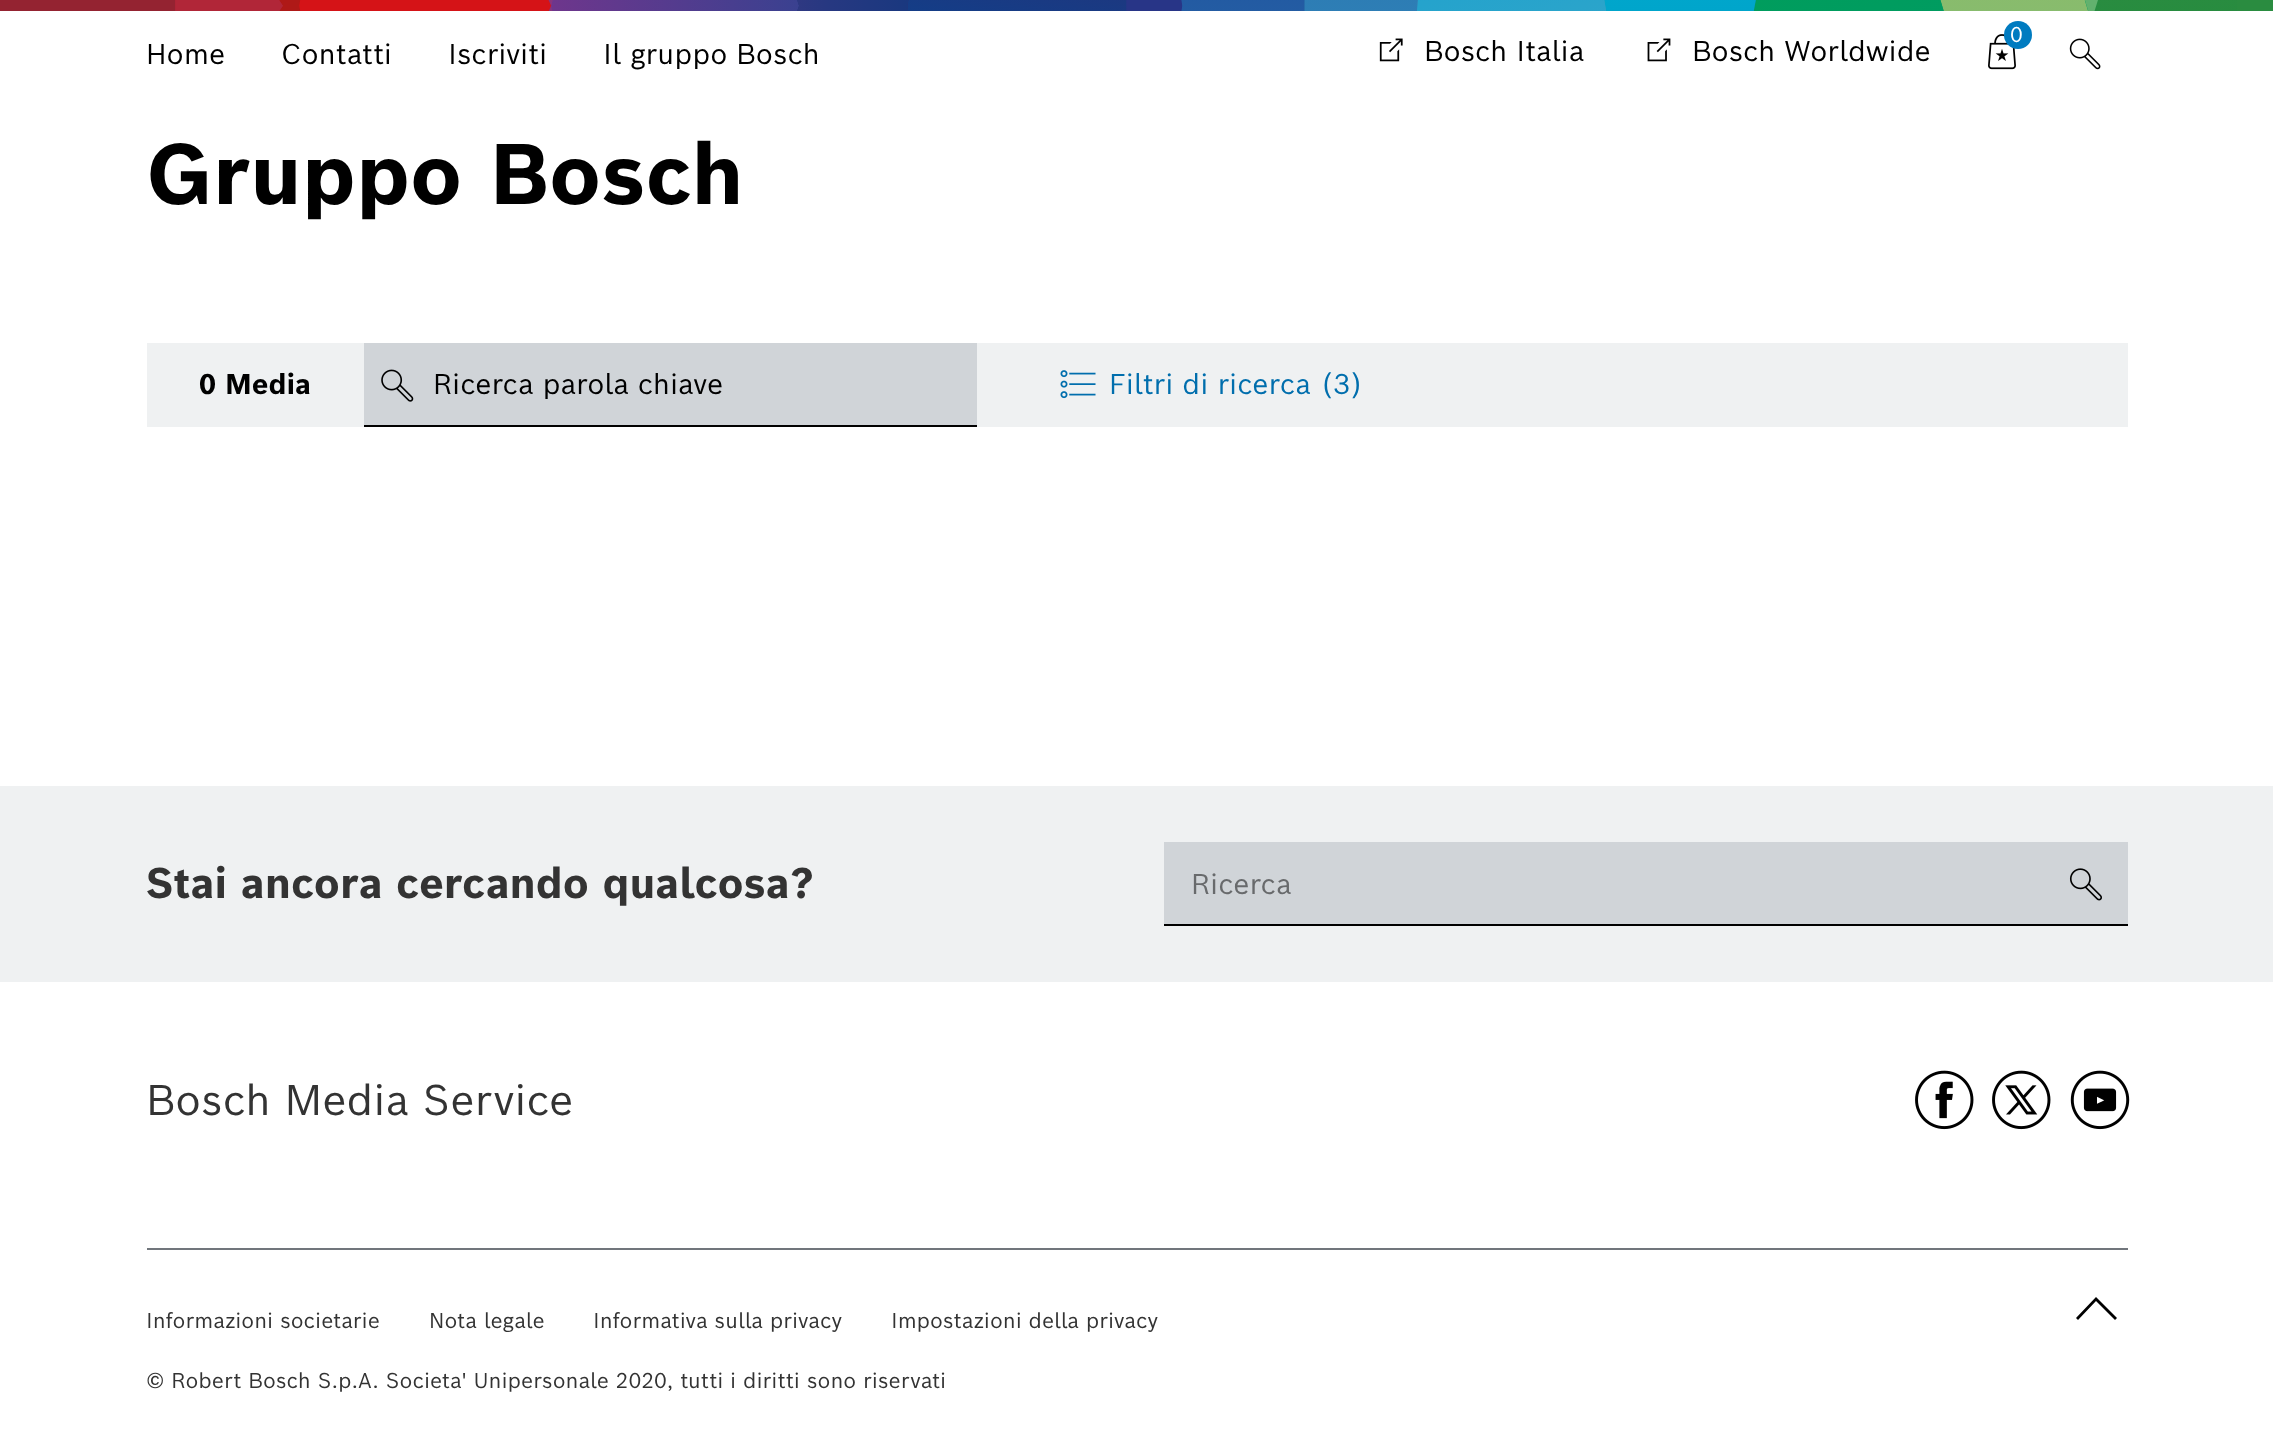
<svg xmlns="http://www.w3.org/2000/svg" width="2273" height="1452">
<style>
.a{font:28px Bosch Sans;fill:#000}
.b{font:21px Bosch Sans;fill:#fff}
.c{font:bold 84px Bosch Sans;fill:#000}
.d{font:bold 28px Bosch Sans;fill:#000}
.e{font:28px Bosch Sans;fill:#006ead}
.f{font:bold 42px Bosch Sans;fill:#333}
.g{font:28px Bosch Sans;fill:#686a6c}
.h{font:42px Bosch Sans;fill:#333}
.i{font:21px Bosch Sans;fill:#333}
</style>
<rect width="100%" height="100%" fill="#fff"/>
<image href="1.png" x="37" y="0" width="2200" height="11"/>
<path fill="#942331" d="M0 0h37v11H0z"/>
<path fill="#2a8c40" d="M2237 0h36v11H2237z"/>
<image href="2.png" x="1988" y="34" width="28" height="36"/>
<circle fill="#007bc0" cx="2018" cy="35" r="14"/>
<image href="3.png" x="1379" y="38" width="24" height="24"/>
<image href="4.png" x="1647" y="38" width="24" height="24"/>
<image href="5.png" x="2069" y="38" width="32" height="32"/>
<path fill="#eff1f2" d="M147 343h1981v84H147z"/>
<path fill="#d0d4d8" d="M364 343h613v82H364z"/>
<image href="6.png" x="381" y="369" width="33" height="33"/>
<path fill="#000" d="M364 425h613v2H364z"/>
<image href="7.png" x="1060" y="370" width="36" height="29"/>
<path fill="#eff1f2" d="M0 786h2273v196H0z"/>
<path fill="#000" d="M1164 924h964v2H1164z"/>
<path fill="#d0d4d8" d="M1164 842h964v82H1164z"/>
<image href="8.png" x="2069" y="868" width="33" height="33"/>
<image href="9.png" x="1915" y="1070" width="59" height="60"/>
<image href="10.png" x="1992" y="1070" width="59" height="60"/>
<image href="11.png" x="2070" y="1070" width="60" height="60"/>
<path fill="#71767c" d="M147 1248h1981v2H147z"/>
<path fill="#000" d="M2115 1320l-19-19l-18 19l-2-2l20-21l21 21z"/>
<text class="a" x="146" y="64">Home</text>
<text class="a" x="281" y="64">Contatti</text>
<text class="a" x="448" y="64">Iscriviti</text>
<text class="a" x="603" y="64">Il gruppo Bosch</text>
<text class="b" x="2010" y="42">0</text>
<text class="a" x="1424" y="61">Bosch Italia</text>
<text class="a" x="1692" y="61">Bosch Worldwide</text>
<text class="c" x="146" y="204">Gruppo Bosch</text>
<text class="d" x="199" y="394">0 Media</text>
<text class="a" x="433" y="394">Ricerca parola chiave</text>
<text class="e" x="1109" y="394">Filtri di ricerca</text>
<text class="e" x="1321" y="394">(3)</text>
<text class="f" x="146" y="898">Stai ancora cercando qualcosa?</text>
<text class="g" x="1191" y="894">Ricerca</text>
<text class="h" x="146" y="1115">Bosch Media Service</text>
<text class="i" x="146" y="1328">Informazioni societarie</text>
<text class="i" x="429" y="1328">Nota legale</text>
<text class="i" x="593" y="1328">Informativa sulla privacy</text>
<text class="i" x="891" y="1328">Impostazioni della privacy</text>
<text class="i" x="146" y="1388">© Robert Bosch S.p.A. Societa' Unipersonale 2020, tutti i diritti sono riservati</text>
</svg>
